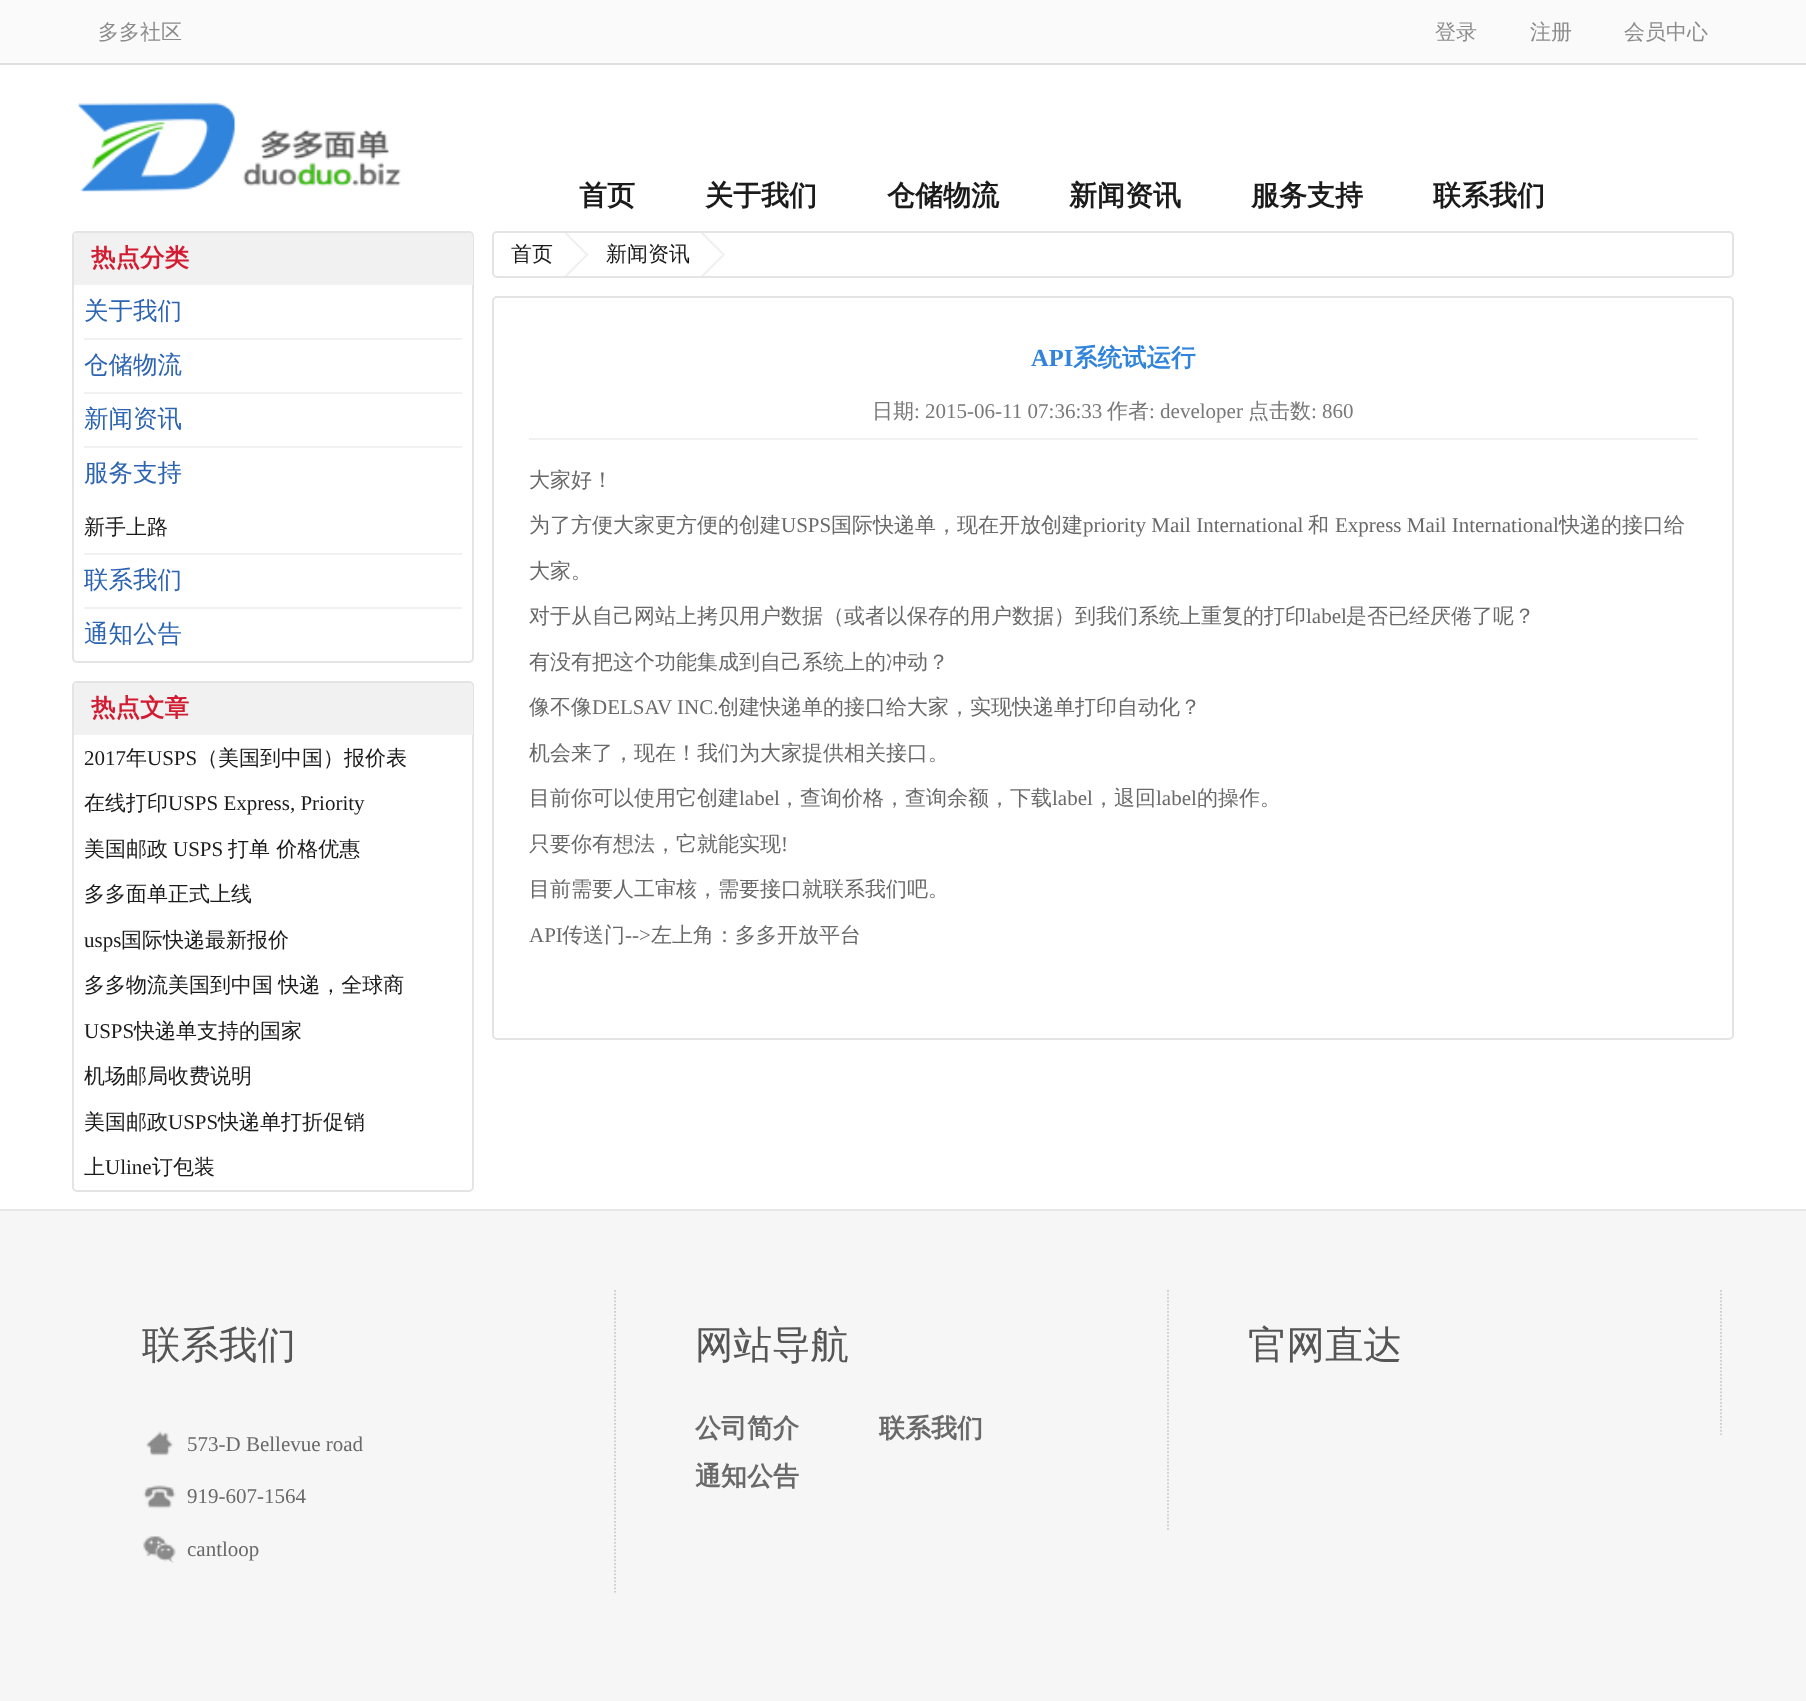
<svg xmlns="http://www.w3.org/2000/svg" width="1806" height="1701">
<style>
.a{font:500 21px WenQuanYi Zen Hei;fill:#8c8c8c}
.b{font:bold 28px WenQuanYi Zen Hei;fill:#1b1b1b}
.c{font:bold 24.5px WenQuanYi Zen Hei;fill:#d31c31}
.d{font:500 24.5px WenQuanYi Zen Hei;fill:#2c64b1}
.e{font:500 21px WenQuanYi Zen Hei;fill:#1b1b1b}
.f{font:21px Liberation Serif;fill:#1b1b1b}
.g{font:bold 24.5px Liberation Serif;fill:#3184db}
.h{font:bold 24.5px WenQuanYi Zen Hei;fill:#3184db}
.i{font:500 21px WenQuanYi Zen Hei;fill:#787878}
.j{font:21px Liberation Serif;fill:#787878}
.k{font:500 21px WenQuanYi Zen Hei;fill:#696969}
.l{font:21px Liberation Serif;fill:#696969}
.m{font:500 38.5px WenQuanYi Zen Hei;fill:#555}
.n{font:bold 26px WenQuanYi Zen Hei;fill:#696969}
</style>
<rect width="100%" height="100%" fill="#fff"/>
<path fill="#fafafa" d="M0 0h1806v63H0z"/>
<path fill="#dfdfdf" d="M0 63h1806v2H0z"/>
<image href="1.png" x="78" y="102" width="323" height="90"/>
<rect fill="none" stroke="#e4e4e4" stroke-width="2" x="73" y="232" width="400" height="430" rx="4"/>
<path fill="#f1f1f1" d="M78 233h391c2 0 4 2 4 4v48h-399v-48c0-2 2-4 4-4z"/>
<path fill="#f1f1f1" d="M84 338h378v2H84z"/>
<path fill="#f1f1f1" d="M84 392h378v2H84z"/>
<path fill="#f1f1f1" d="M84 446h378v2H84z"/>
<path fill="#f1f1f1" d="M84 553h378v2H84z"/>
<path fill="#f1f1f1" d="M84 607h378v2H84z"/>
<rect fill="none" stroke="#e4e4e4" stroke-width="2" x="73" y="682" width="400" height="509" rx="4"/>
<path fill="#f1f1f1" d="M78 683h391c2 0 4 2 4 4v48h-399v-48c0-2 2-4 4-4z"/>
<rect fill="none" stroke="#e4e4e4" stroke-width="2" x="493" y="232" width="1240" height="45" rx="4"/>
<image href="2.png" x="565" y="233" width="23" height="43"/>
<image href="3.png" x="701" y="233" width="24" height="43"/>
<rect fill="none" stroke="#e4e4e4" stroke-width="2" x="493" y="297" width="1240" height="742" rx="4"/>
<path fill="#f1f1f1" d="M529 438h1169v2H529z"/>
<path fill="#f6f6f6" d="M0 1211h1806v490H0z"/>
<path fill="#e7e7e7" d="M0 1209h1806v2H0z"/>
<path fill="none" stroke="#ccc" stroke-width="1.8" stroke-dasharray="1.75 1.75" d="M615 1290v302.5"/>
<image href="4.png" x="146" y="1431" width="28" height="25"/>
<image href="5.png" x="143" y="1485" width="33" height="24"/>
<image href="6.png" x="143" y="1536" width="33" height="27"/>
<path fill="none" stroke="#ccc" stroke-width="1.8" stroke-dasharray="1.75 1.75" d="M1168 1290v241"/>
<path fill="none" stroke="#ccc" stroke-width="1.8" stroke-dasharray="1.75 1.75" d="M1721 1290v145"/>
<text class="a" x="98" y="39">多多社区</text>
<text class="a" x="1435" y="39">登录</text>
<text class="a" x="1530" y="39">注册</text>
<text class="a" x="1624" y="39">会员中心</text>
<text class="b" x="579" y="205">首页</text>
<text class="b" x="705" y="205">关于我们</text>
<text class="b" x="887" y="205">仓储物流</text>
<text class="b" x="1069" y="205">新闻资讯</text>
<text class="b" x="1251" y="205">服务支持</text>
<text class="b" x="1433" y="205">联系我们</text>
<text class="c" x="91" y="266">热点分类</text>
<text class="d" x="84" y="319">关于我们</text>
<text class="d" x="84" y="373">仓储物流</text>
<text class="d" x="84" y="427">新闻资讯</text>
<text class="d" x="84" y="481">服务支持</text>
<text class="e" x="84" y="534">新手上路</text>
<text class="d" x="84" y="588">联系我们</text>
<text class="d" x="84" y="642">通知公告</text>
<text class="c" x="91" y="716">热点文章</text>
<text class="f" x="84" y="765">2017</text>
<text class="e" x="126" y="765">年</text>
<text class="f" x="147" y="765">USPS</text>
<text class="e" x="197" y="765">（美国到中国）报价表</text>
<text class="e" x="84" y="810">在线打印</text>
<text class="f" x="168" y="810">USPS Express, Priority</text>
<text class="e" x="84" y="856">美国邮政</text>
<text class="f" x="173" y="856">USPS</text>
<text class="e" x="228" y="856">打单 价格优惠</text>
<text class="e" x="84" y="901">多多面单正式上线</text>
<text class="f" x="84" y="947">usps</text>
<text class="e" x="121" y="947">国际快递最新报价</text>
<text class="e" x="84" y="992" word-spacing="-1">多多物流美国到中国 快递，全球商</text>
<text class="f" x="84" y="1038">USPS</text>
<text class="e" x="134" y="1038">快递单支持的国家</text>
<text class="e" x="84" y="1083">机场邮局收费说明</text>
<text class="e" x="84" y="1129">美国邮政</text>
<text class="f" x="168" y="1129">USPS</text>
<text class="e" x="218" y="1129">快递单打折促销</text>
<text class="e" x="84" y="1174">上</text>
<text class="f" x="105" y="1174">Uline</text>
<text class="e" x="152" y="1174">订包装</text>
<text class="e" x="511" y="261">首页</text>
<text class="e" x="606" y="261">新闻资讯</text>
<text class="g" x="1031" y="366">API</text>
<text class="h" x="1073" y="366">系统试运行</text>
<text class="i" x="872" y="418">日期</text>
<text class="j" x="914" y="418">: 2015-06-11 07:36:33</text>
<text class="i" x="1107" y="418">作者</text>
<text class="j" x="1149" y="418">: developer</text>
<text class="i" x="1248" y="418">点击数</text>
<text class="j" x="1311" y="418">: 860</text>
<text class="k" x="529" y="487">大家好！</text>
<text class="k" x="529" y="532">为了方便大家更方便的创建</text>
<text class="l" x="781" y="532">USPS</text>
<text class="k" x="831" y="532">国际快递单，现在开放创建</text>
<text class="l" x="1083" y="532">priority Mail International</text>
<text class="k" x="1308" y="532">和</text>
<text class="l" x="1335" y="532">Express Mail International</text>
<text class="k" x="1559" y="532">快递的接口给</text>
<text class="k" x="529" y="578">大家。</text>
<text class="k" x="529" y="623">对于从自己网站上拷贝用户数据（或者以保存的用户数据）到我们系统上重复的打印</text>
<text class="l" x="1306" y="623">label</text>
<text class="k" x="1346" y="623">是否已经厌倦了呢？</text>
<text class="k" x="529" y="669">有没有把这个功能集成到自己系统上的冲动？</text>
<text class="k" x="529" y="714">像不像</text>
<text class="l" x="592" y="714">DELSAV INC.</text>
<text class="k" x="718" y="714">创建快递单的接口给大家，实现快递单打印自动化？</text>
<text class="k" x="529" y="760">机会来了，现在！我们为大家提供相关接口。</text>
<text class="k" x="529" y="805">目前你可以使用它创建</text>
<text class="l" x="739" y="805">label</text>
<text class="k" x="779" y="805">，查询价格，查询余额，下载</text>
<text class="l" x="1052" y="805">label</text>
<text class="k" x="1093" y="805">，退回</text>
<text class="l" x="1156" y="805">label</text>
<text class="k" x="1197" y="805">的操作。</text>
<text class="k" x="529" y="851">只要你有想法，它就能实现</text>
<text class="l" x="781" y="851">!</text>
<text class="k" x="529" y="896">目前需要人工审核，需要接口就联系我们吧。</text>
<text class="l" x="529" y="942">API</text>
<text class="k" x="562" y="942">传送门</text>
<text class="l" x="625" y="942">--&gt;</text>
<text class="k" x="651" y="942">左上角：多多开放平台</text>
<text class="m" x="142" y="1358">联系我们</text>
<text class="l" x="187" y="1451">573-D Bellevue road</text>
<text class="l" x="187" y="1503">919-607-1564</text>
<text class="l" x="187" y="1556">cantloop</text>
<text class="m" x="695" y="1358">网站导航</text>
<text class="n" x="695" y="1437">公司简介</text>
<text class="n" x="879" y="1437">联系我们</text>
<text class="n" x="695" y="1485">通知公告</text>
<text class="m" x="1248" y="1358">官网直达</text>
</svg>
